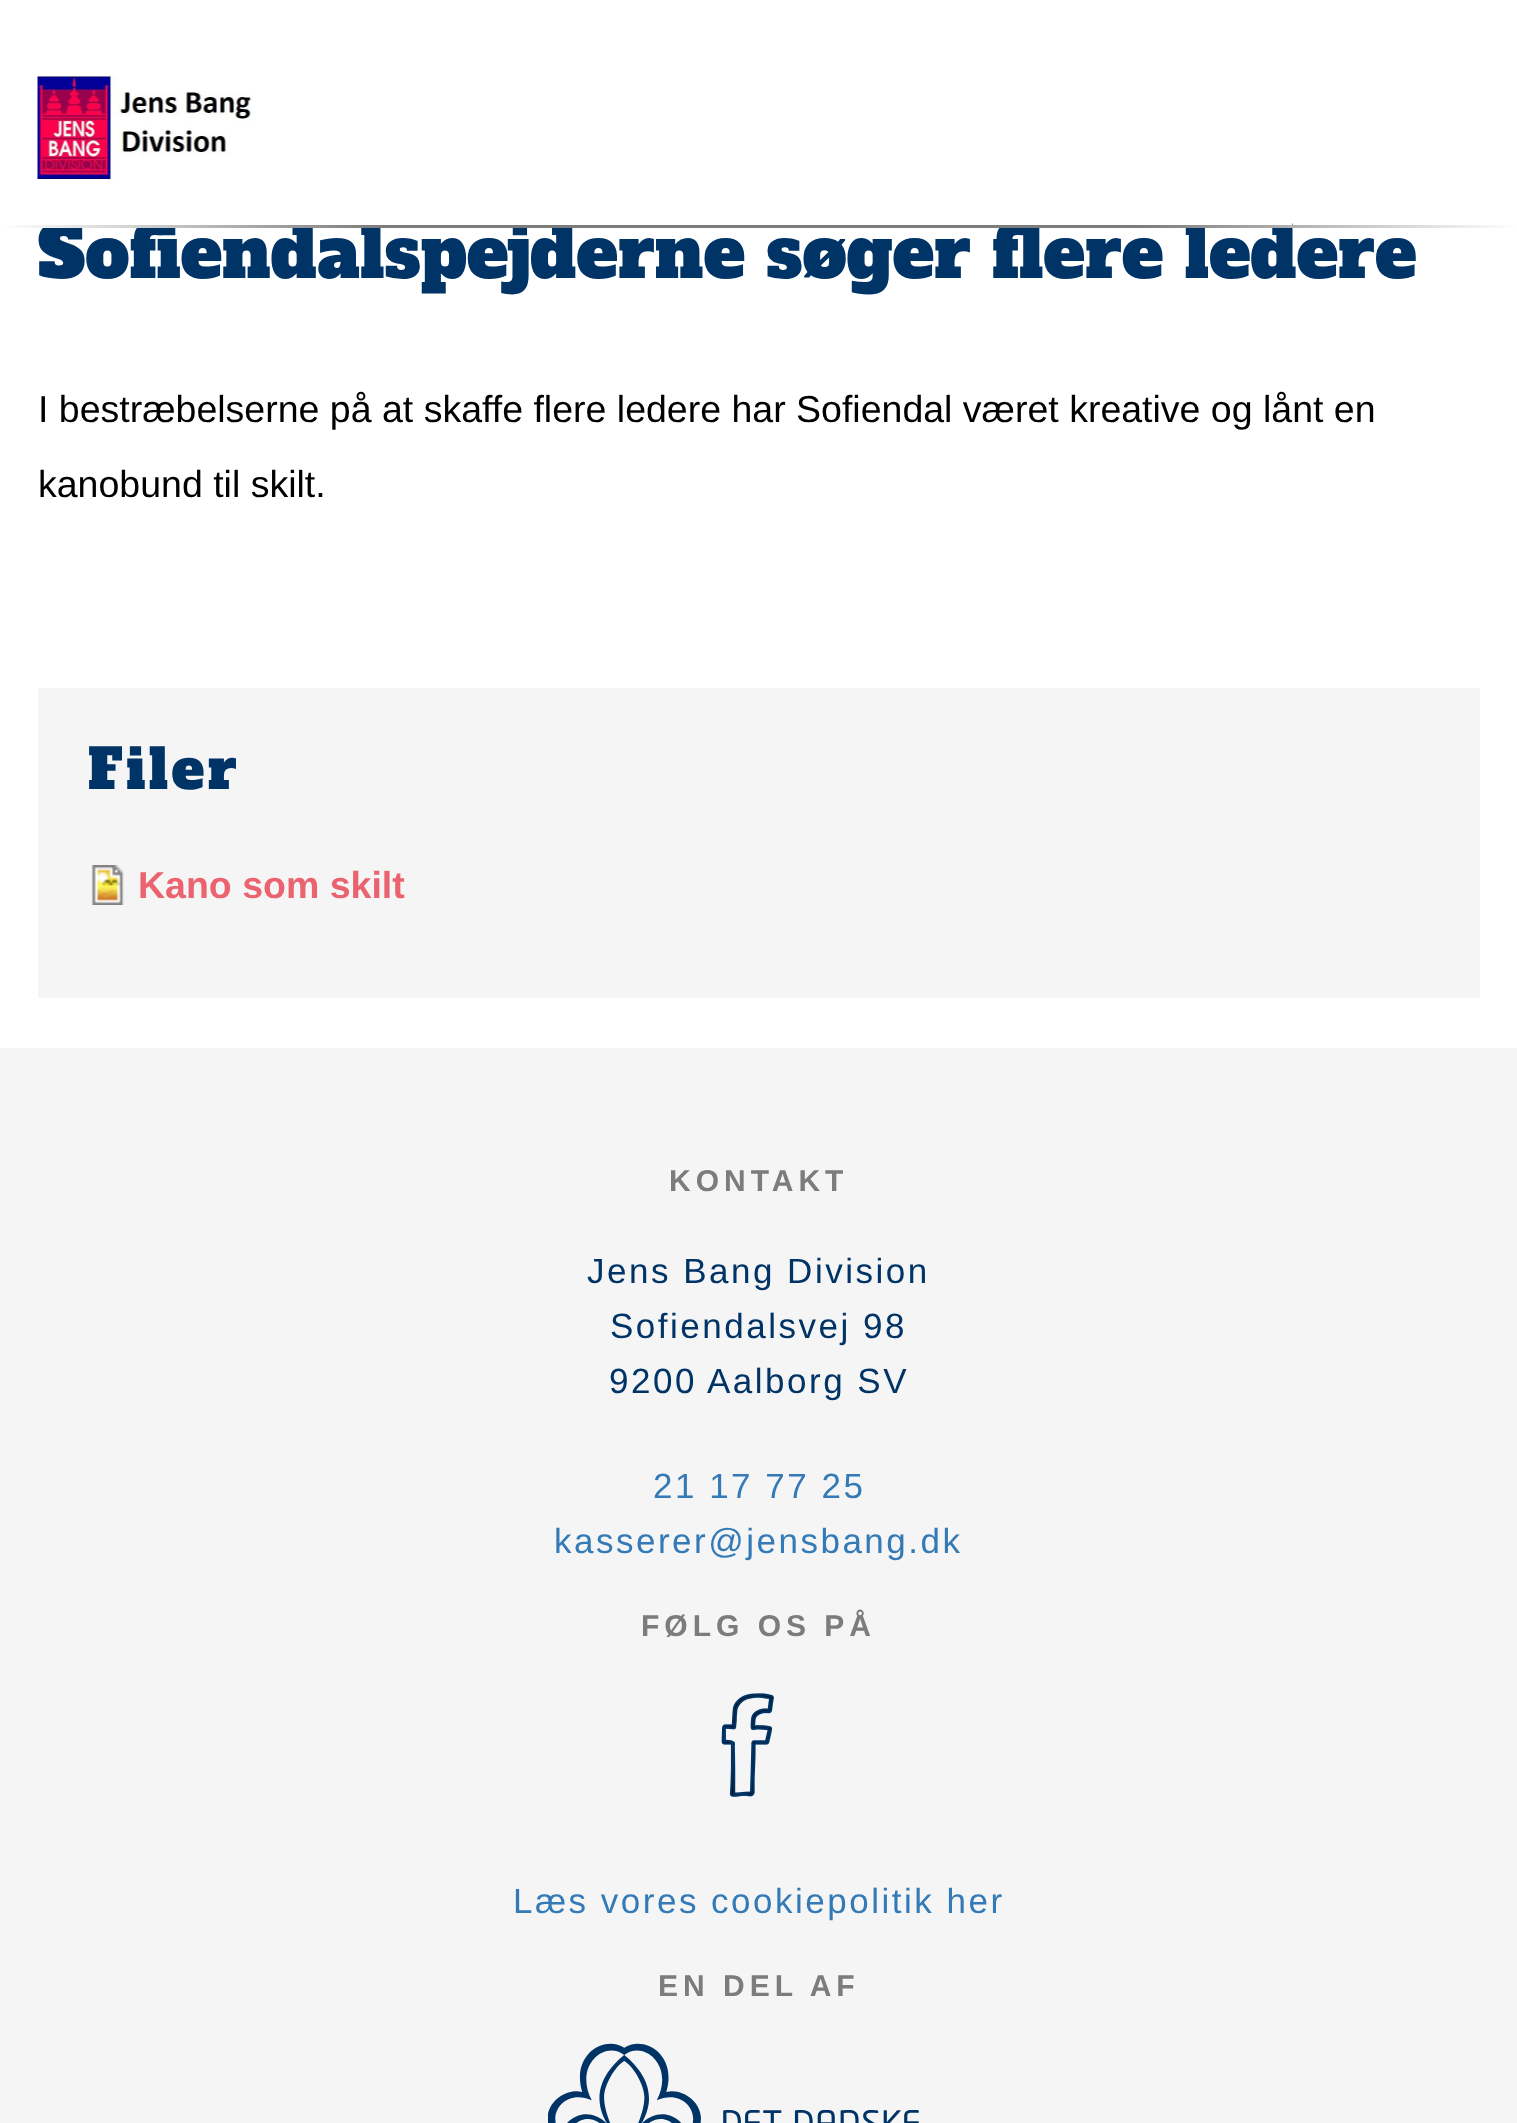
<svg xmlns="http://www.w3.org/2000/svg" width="1517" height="2123">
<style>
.a{font:70px Alfa Slab One;fill:#036}
.b{font:37.5px Liberation Sans;fill:#000}
.c{font:55px Alfa Slab One;letter-spacing:3.5px;fill:#036}
.d{font:bold 37.5px Liberation Sans;fill:#ea636f}
.e{font:bold 30px Liberation Sans;letter-spacing:5px;fill:#7c7c7c}
.f{font:35px Liberation Sans;letter-spacing:2.5px;fill:#036}
.g{font:35px Liberation Sans;letter-spacing:2.5px;fill:#337ab7}
</style>
<defs>
<linearGradient id="g1" gradientUnits="userSpaceOnUse" x1="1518" y1="226" x2="0" y2="226"><stop offset="0" stop-color="#fff"/><stop offset="0.25" stop-color="#7c7c7c"/><stop offset="0.75" stop-color="#7c7c7c"/><stop offset="1" stop-color="#fff"/></linearGradient>
</defs>
<rect width="100%" height="100%" fill="#fff"/>
<image href="1.png" x="37" y="75" width="217" height="105"/>
<path fill="#f5f5f5" d="M38 688h1442v310H38z"/>
<image href="2.png" x="91" y="865" width="33" height="40"/>
<path fill="#f5f5f5" d="M0 1048h1517v1075H0z"/>
<image href="3.png" x="721" y="1693" width="53" height="104"/>
<image href="4.png" x="548" y="2043" width="371" height="80"/>
<text class="a" x="38" y="278">Sofiendalspejderne søger flere ledere</text>
<path fill="url(#g1)" d="M0 225h1517v3H0z"/>
<path fill="#fff" d="M46 222h1246v3H46z"/>
<text class="b" x="38" y="422">I bestræbelserne på at skaffe flere ledere har Sofiendal været kreative og lånt en</text>
<text class="b" x="38" y="497">kanobund til skilt.</text>
<text class="c" x="88" y="789">Filer</text>
<text class="d" x="138" y="898">Kano som skilt</text>
<text class="e" x="669" y="1191">KONTAKT</text>
<text class="f" x="587" y="1283">Jens Bang Division</text>
<text class="f" x="610" y="1338">Sofiendalsvej 98</text>
<text class="f" x="609" y="1393">9200</text>
<text class="f" x="707" y="1393">Aalborg SV</text>
<text class="g" x="653" y="1498">21 17 77 25</text>
<text class="g" x="554" y="1553">kasserer@jensbang.dk</text>
<text class="e" x="641" y="1636">FØLG OS PÅ</text>
<text class="g" x="513" y="1913">Læs vores cookiepolitik her</text>
<text class="e" x="658" y="1996">EN DEL AF</text>
</svg>
